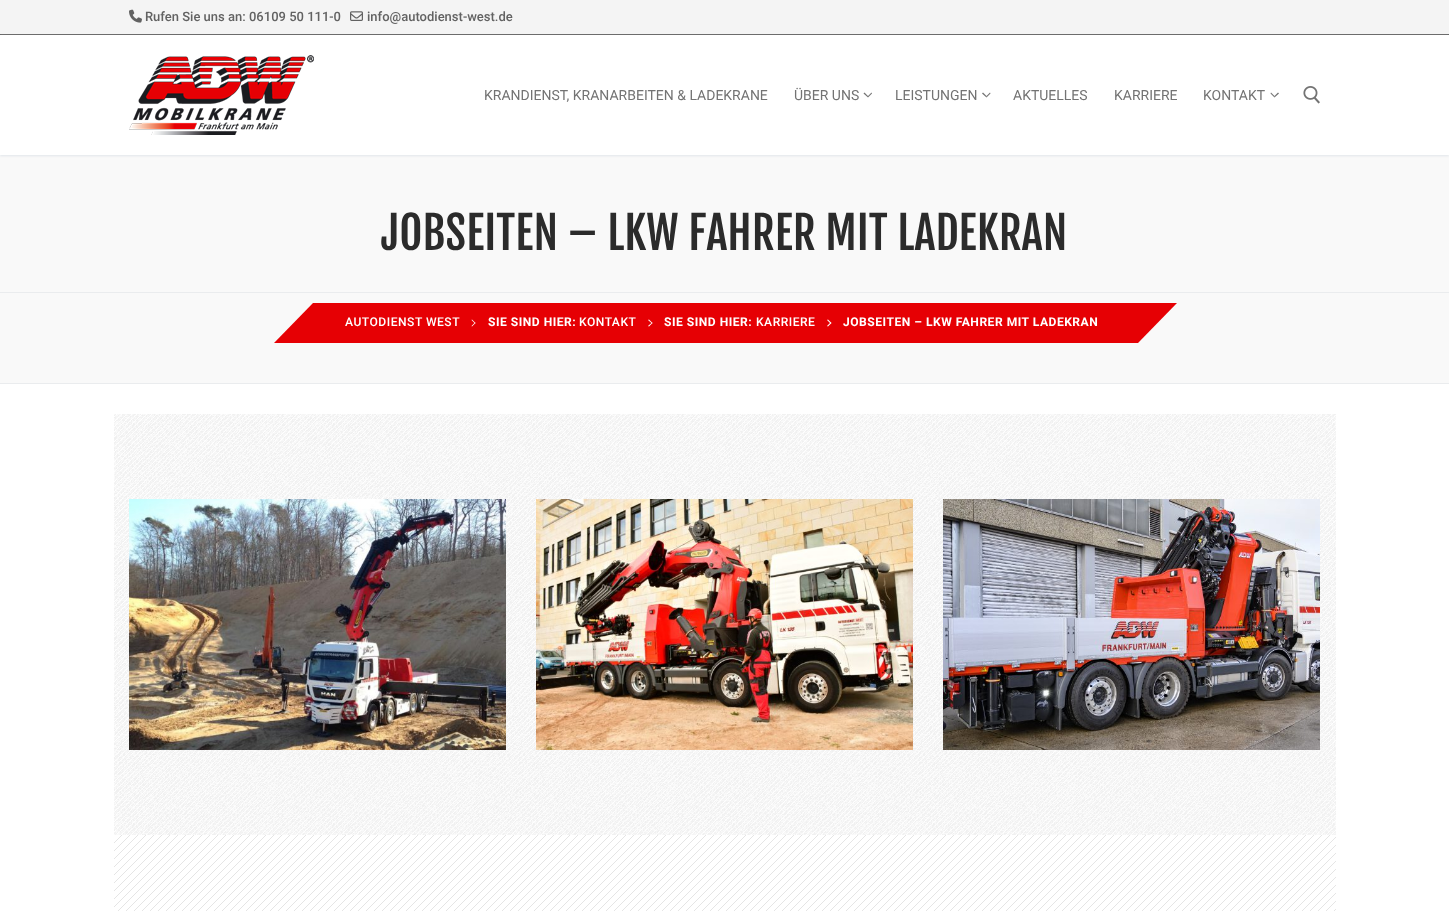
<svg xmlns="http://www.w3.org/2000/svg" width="1449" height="911">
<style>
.a{font:500 13px Roboto;fill:#626262}
.b{font:14px Roboto;fill:#737373}
.c{font:44.75px Fjalla One;fill:#2b2b2b}
.d{font:500 12.1px Roboto;letter-spacing:0.5px;fill:#fff}
.e{font:bold 12.1px Roboto;letter-spacing:0.5px;fill:#fff}
</style>
<defs>
<clipPath id="clip1"><path d="M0 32h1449v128h-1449zm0 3h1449v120h-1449z" clip-rule="evenodd"/></clipPath>
</defs>
<rect width="100%" height="100%" fill="#fff"/>
<path fill="#f4f4f4" d="M0 0h1449v34H0z"/>
<path fill="#626262" d="M0 34h1449v1H0z"/>
<image href="1.png" x="129" y="9" width="13" height="14"/>
<image href="2.png" x="350" y="11" width="13" height="10"/>
<path fill="#f9f9f9" d="M0 155h1449v137H0z"/>
<g clip-path="url(#clip1)">
<path fill="#e1e5ea" filter="blur(1px)" d="M0 36h1449v120H0z"/>
</g>
<image href="3.png" x="129" y="55" width="185" height="80"/>
<path fill="#737373" d="M868 97.5l-4.5-4l1-1l3.5 3.5zm4-4l-4 4v-1.5l3.5-3.5z"/>
<path fill="#737373" d="M986.5 97.5l-4.5-4l1-1l3.5 3.5z"/>
<path fill="#0000008c" d="M990.5 93.5l-4 4v-1.5l3.5-3.5z"/>
<path fill="#737373" d="M1274.5 97.5l-4-4l.5-1l3.5 3.5z"/>
<path fill="#0000008c" d="M1279 93.5l-4.5 4v-1.5l3.5-3.5z"/>
<image href="4.png" x="1303" y="86" width="17" height="18"/>
<path fill="#eaecee" d="M0 292h1449v1H0z"/>
<path fill="#f9f9f9" d="M0 293h1449v90H0z"/>
<path fill="#eaecee" d="M0 383h1449v1H0z"/>
<path fill="#e60004" d="M313 303h864l-39 40h-864z"/>
<path fill="#fff" d="M475.5 323l-3.5 3.5l-.5-.5l3.5-3.5z"/>
<path fill="#fff" d="M475.5 323l-.5 .5l-3.5-3.5l.5-.5z"/>
<path fill="#fff" d="M652.5 323l-3.5 3.5l-1-.5l4-3.5z"/>
<path fill="#fff" d="M652.5 323l-.5 .5l-4-3.5l1-.5z"/>
<path fill="#fff" d="M831.5 323l-3.5 3.5l-1-.5l3.5-3.5z"/>
<path fill="#fff" d="M831.5 323l-1 .5l-3.5-3.5l1-.5z"/>
<image href="5.png" x="114" y="414" width="1222" height="421"/>
<image href="6.png" x="129" y="499" width="377" height="251"/>
<image href="7.png" x="536" y="499" width="377" height="251"/>
<image href="8.png" x="943" y="499" width="377" height="251"/>
<image href="9.png" x="114" y="835" width="1222" height="76"/>
<text class="a" x="145" y="21">Rufen Sie uns an: 06109 50 111-0</text>
<text class="a" x="367" y="21">info@autodienst-west.de</text>
<text class="b" x="484" y="100">KRANDIENST, KRANARBEITEN &amp; LADEKRANE</text>
<text class="b" x="794" y="100">ÜBER UNS</text>
<text class="b" x="895" y="100">LEISTUNGEN</text>
<text class="b" x="1013" y="100">AKTUELLES</text>
<text class="b" x="1114" y="100">KARRIERE</text>
<text class="b" x="1203" y="100">KONTAKT</text>
<text class="c" x="381" y="250">JOBSEITEN – LKW FAHRER MIT LADEKRAN</text>
<text class="d" x="345" y="326">AUTODIENST WEST</text>
<text class="e" x="488" y="326">SIE SIND HIER:</text>
<text class="d" x="579" y="326">KONTAKT</text>
<text class="e" x="664" y="326">SIE SIND HIER:</text>
<text class="d" x="756" y="326">KARRIERE</text>
<text class="e" x="843" y="326">JOBSEITEN – LKW FAHRER MIT LADEKRAN</text>
</svg>
